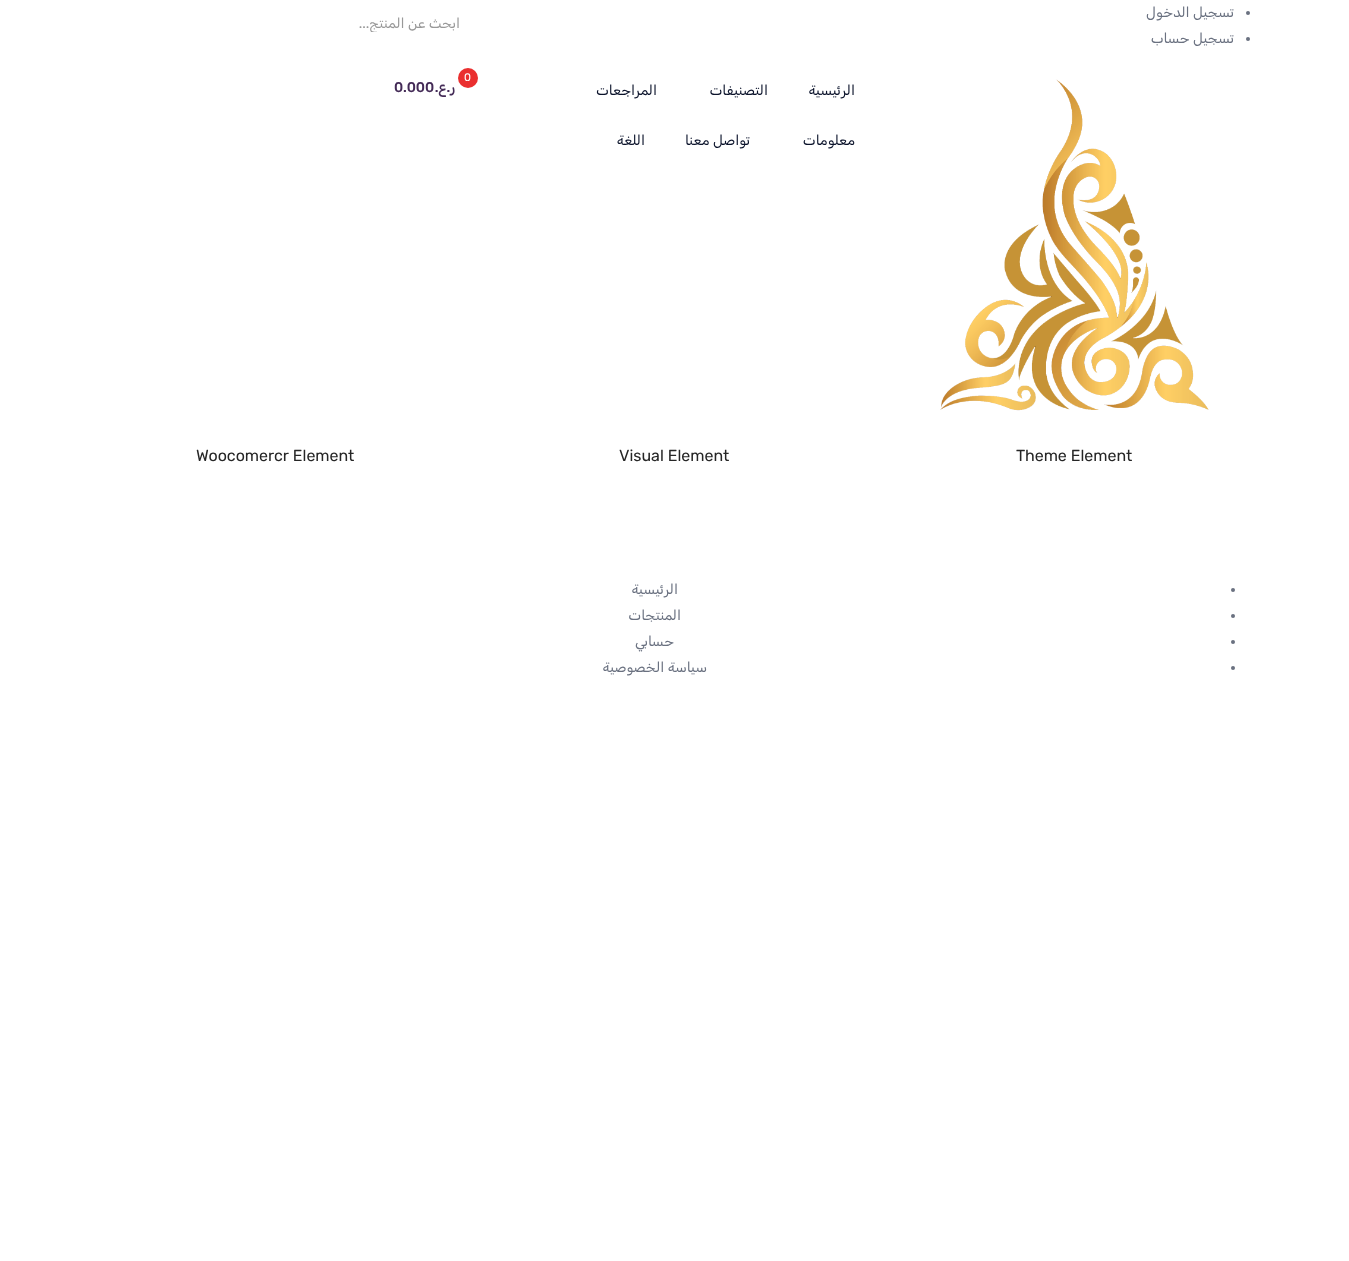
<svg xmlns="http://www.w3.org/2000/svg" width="1349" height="1261">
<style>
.a{font:14px Rubik;direction:rtl;fill:#6a7180}
.b{font:14px Rubik;direction:rtl;fill:#999}
.c{font:14px Rubik;direction:rtl;fill:#0b132b}
.d{font:11px Rubik;fill:#fff}
.e{font:500 14px Rubik;direction:rtl;fill:#442b57}
.f{font:500 14px Rubik;fill:#442b57}
.g{font:16px Rubik;fill:#262626}
</style>
<defs>
<clipPath id="clip1"><path d="M117 15h343v17H117z"/></clipPath>
</defs>
<rect width="100%" height="100%" fill="#fff"/>
<circle fill="#6a7180" cx="1248" cy="13" r="2"/>
<circle fill="#6a7180" cx="1248" cy="39" r="2"/>
<image href="1.png" x="940" y="79" width="269" height="332"/>
<circle fill="#ea2f2f" cx="468" cy="78" r="10"/>
<circle fill="#6a7180" cx="1233" cy="590" r="2"/>
<circle fill="#6a7180" cx="1233" cy="616" r="2"/>
<circle fill="#6a7180" cx="1233" cy="642" r="2"/>
<circle fill="#6a7180" cx="1233" cy="668" r="2"/>
<text class="a" x="1234" y="17">تسجيل الدخول</text>
<text class="a" x="1234" y="43">تسجيل حساب</text>
<g clip-path="url(#clip1)">
<text class="b" x="460" y="28">ابحث عن المنتج...</text>
</g>
<text class="c" x="855" y="95">الرئيسية</text>
<text class="c" x="768" y="95">التصنيفات</text>
<text class="c" x="657" y="95">المراجعات</text>
<text class="c" x="855" y="145">معلومات</text>
<text class="c" x="750" y="145">تواصل معنا</text>
<text class="c" x="645" y="145">اللغة</text>
<text class="d" x="464" y="81">0</text>
<text class="e" x="455" y="92">ر.ع.</text>
<text class="f" x="394" y="92">0.000</text>
<text class="g" x="1016" y="461">Theme Element</text>
<text class="g" x="619" y="461">Visual Element</text>
<text class="g" x="196" y="461">Woocomercr Element</text>
<text class="a" x="678" y="594">الرئيسية</text>
<text class="a" x="681" y="620">المنتجات</text>
<text class="a" x="674" y="646">حسابي</text>
<text class="a" x="707" y="672">سياسة الخصوصية</text>
</svg>
